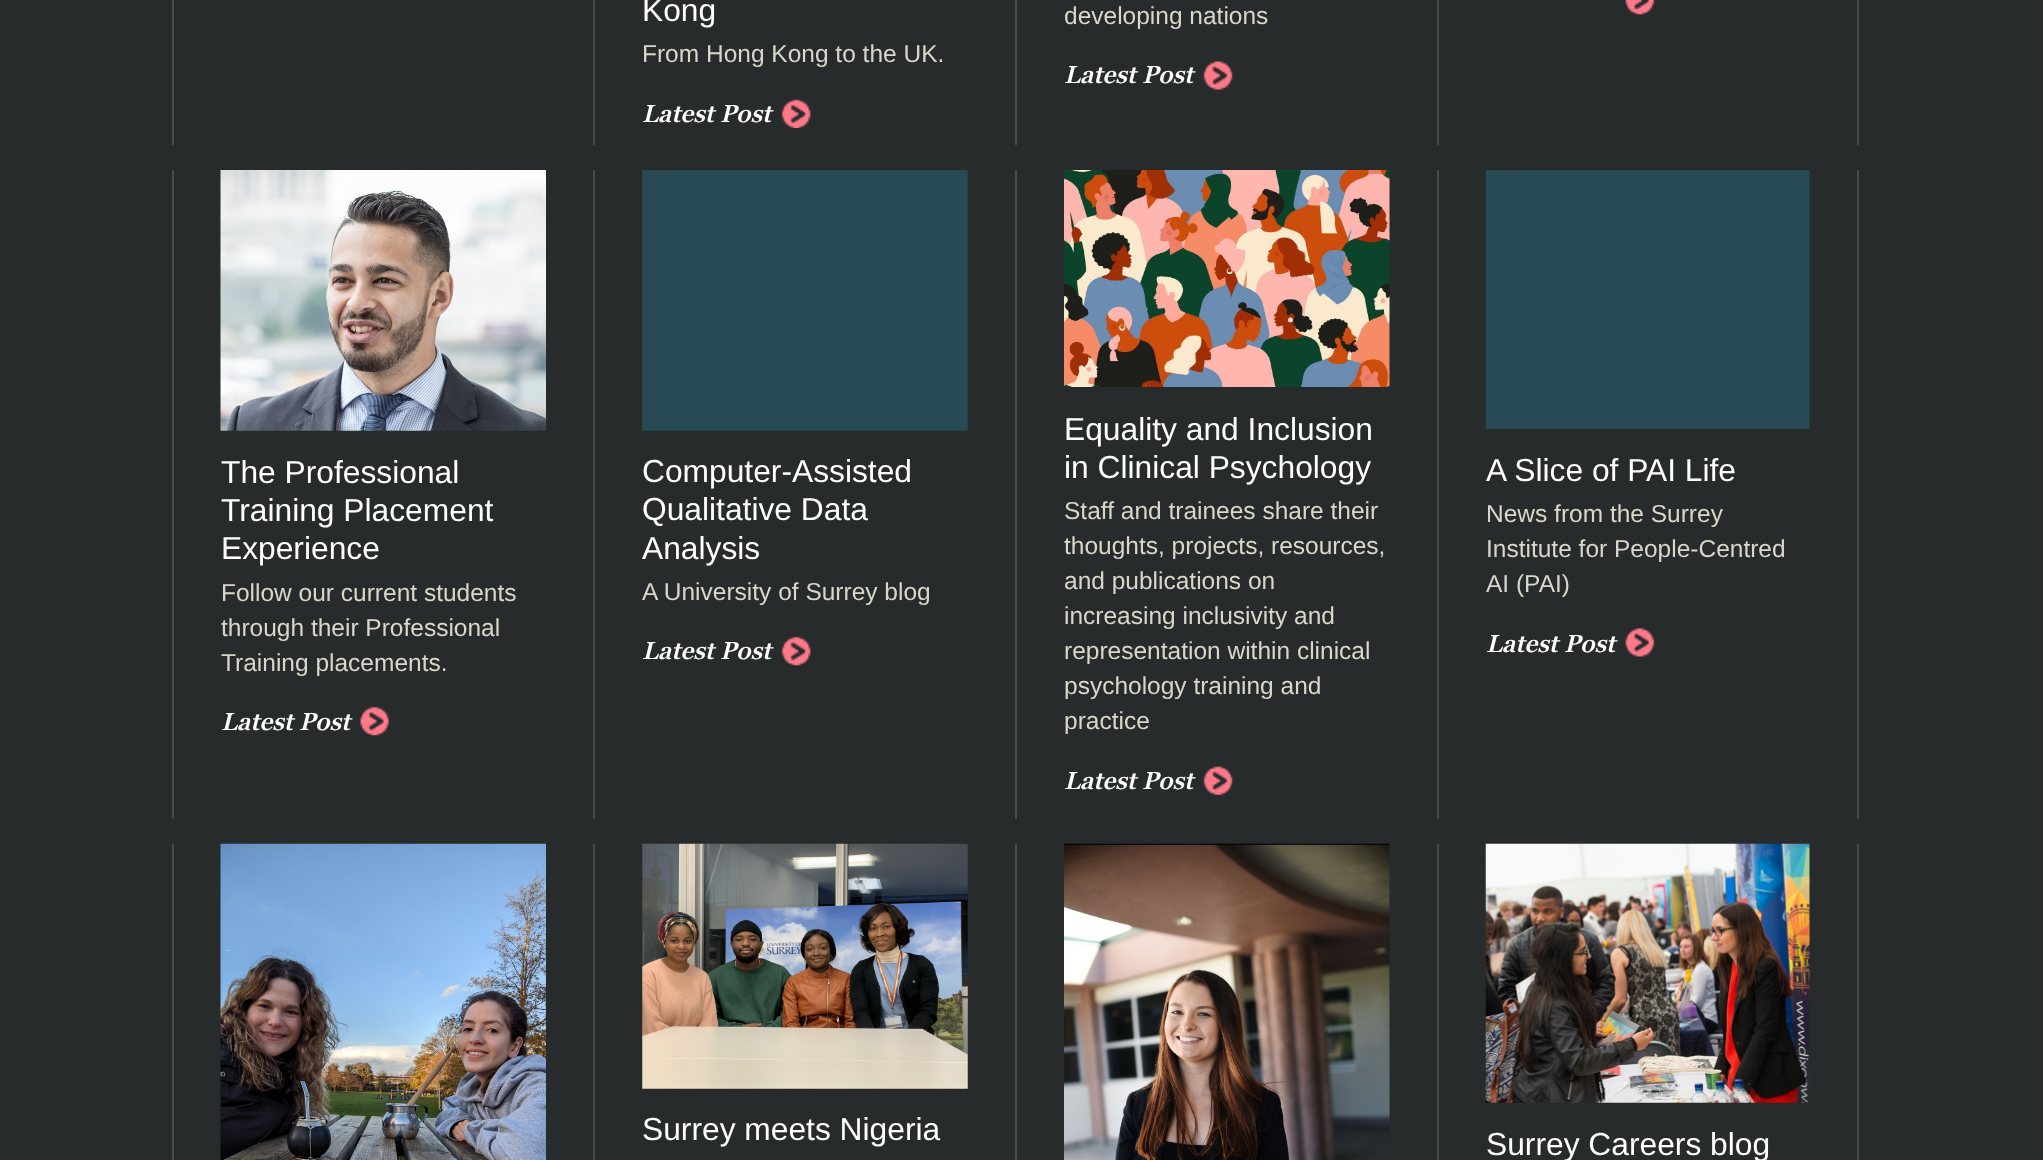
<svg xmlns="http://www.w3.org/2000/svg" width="2043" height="1160">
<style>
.a{font:31.75px Liberation Sans;fill:#fff}
.b{font:24.5px Liberation Sans;fill:#d8d7ca}
.c{font:italic 600 24.5px Georgia;fill:#fff}
</style>
<rect width="100%" height="100%" fill="#272b2b"/>
<path fill="#474b4b" d="M172 0h2v145H172z"/>
<path fill="#474b4b" d="M593 0h2v145H593z"/>
<image href="1.png" x="781" y="99" width="30" height="29"/>
<path fill="#474b4b" d="M1015 0h2v145H1015z"/>
<image href="2.png" x="1203" y="61" width="30" height="29"/>
<path fill="#474b4b" d="M1857 0h2v145H1857z"/>
<path fill="#474b4b" d="M1437 0h2v145H1437z"/>
<image href="3.png" x="1625" y="0" width="30" height="15"/>
<path fill="#474b4b" d="M172 170h2v649H172z"/>
<image href="4.png" x="220" y="170" width="326" height="261"/>
<image href="5.png" x="360" y="706" width="29" height="30"/>
<path fill="#474b4b" d="M593 170h2v649H593z"/>
<image href="6.png" x="642" y="170" width="326" height="261"/>
<image href="7.png" x="781" y="636" width="30" height="30"/>
<path fill="#474b4b" d="M1015 170h2v649H1015z"/>
<image href="8.png" x="1064" y="170" width="326" height="217"/>
<image href="9.png" x="1203" y="766" width="30" height="29"/>
<path fill="#474b4b" d="M1857 170h2v649H1857z"/>
<path fill="#474b4b" d="M1437 170h2v649H1437z"/>
<image href="10.png" x="1485" y="170" width="325" height="259"/>
<image href="11.png" x="1625" y="628" width="30" height="29"/>
<path fill="#474b4b" d="M172 844h2v316H172z"/>
<image href="12.png" x="220" y="843" width="326" height="317"/>
<path fill="#474b4b" d="M593 844h2v316H593z"/>
<image href="13.png" x="642" y="843" width="326" height="246"/>
<path fill="#474b4b" d="M1015 844h2v316H1015z"/>
<image href="14.png" x="1064" y="843" width="326" height="317"/>
<path fill="#474b4b" d="M1857 844h2v316H1857z"/>
<path fill="#474b4b" d="M1437 844h2v316H1437z"/>
<image href="15.png" x="1485" y="843" width="325" height="260"/>
<text class="a" x="642" y="21">Kong</text>
<text class="b" x="642" y="62">From Hong Kong to the UK.</text>
<text class="c" x="642" y="122">Latest Post</text>
<text class="b" x="1064" y="24">developing nations</text>
<text class="c" x="1064" y="83">Latest Post</text>
<text class="a" x="221" y="483">The Professional</text>
<text class="a" x="221" y="521">Training Placement</text>
<text class="a" x="221" y="559">Experience</text>
<text class="b" x="221" y="601">Follow our current students</text>
<text class="b" x="221" y="636">through their Professional</text>
<text class="b" x="221" y="671">Training placements.</text>
<text class="c" x="221" y="730">Latest Post</text>
<text class="a" x="642" y="482">Computer-Assisted</text>
<text class="a" x="642" y="520">Qualitative Data</text>
<text class="a" x="642" y="559">Analysis</text>
<text class="b" x="642" y="600">A University of Surrey blog</text>
<text class="c" x="642" y="659">Latest Post</text>
<text class="a" x="1064" y="440">Equality and Inclusion</text>
<text class="a" x="1064" y="478">in Clinical Psychology</text>
<text class="b" x="1064" y="519">Staff and trainees share their</text>
<text class="b" x="1064" y="554">thoughts, projects, resources,</text>
<text class="b" x="1064" y="589">and publications on</text>
<text class="b" x="1064" y="624">increasing inclusivity and</text>
<text class="b" x="1064" y="659">representation within clinical</text>
<text class="b" x="1064" y="694">psychology training and</text>
<text class="b" x="1064" y="729">practice</text>
<text class="c" x="1064" y="789">Latest Post</text>
<text class="a" x="1486" y="481">A Slice of PAI Life</text>
<text class="b" x="1486" y="522">News from the Surrey</text>
<text class="b" x="1486" y="557">Institute for People-Centred</text>
<text class="b" x="1486" y="592">AI (PAI)</text>
<text class="c" x="1486" y="652">Latest Post</text>
<text class="a" x="642" y="1140">Surrey meets Nigeria</text>
<text class="a" x="1486" y="1155">Surrey Careers blog</text>
</svg>
